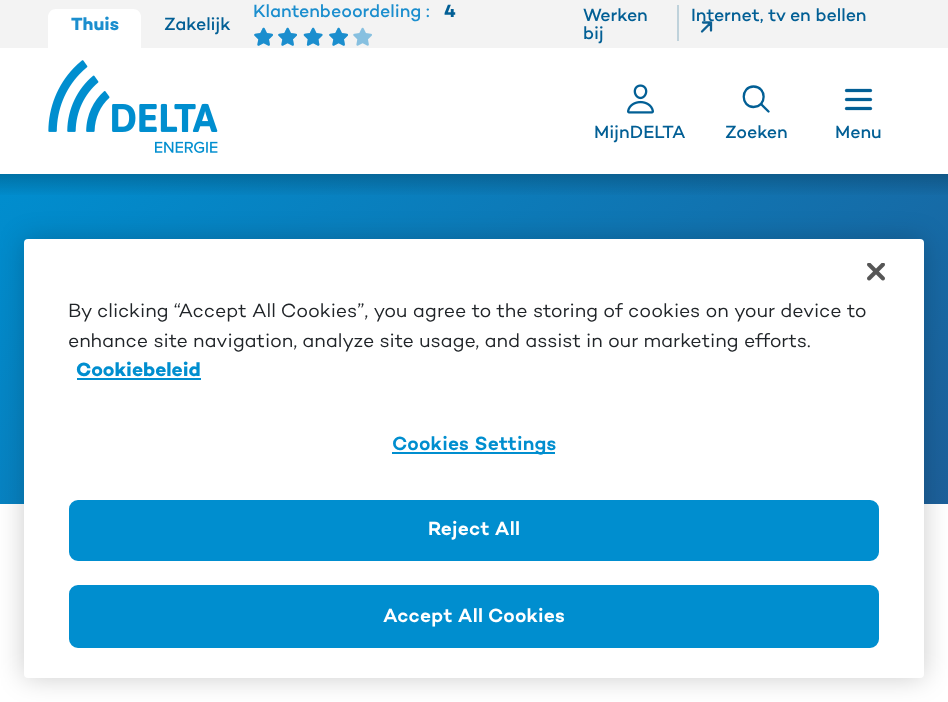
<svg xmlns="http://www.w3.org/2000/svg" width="948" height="702">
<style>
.a{font:18px 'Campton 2';fill:#1b8ece}
.b{font:18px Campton;fill:#025f95}
.c{font:18px Campton;fill:#1b8ece}
.d{font:18px 'Campton 2';fill:#025f95}
.e{font:19.5px 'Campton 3';fill:#212529}
.f{font:19.5px 'Campton 2';fill:#008ecf}
.g{font:19.5px 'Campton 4';letter-spacing:0.25px;fill:#008ecf}
.h{font:19.5px 'Campton 4';letter-spacing:0.25px;fill:#fff}
</style>
<defs>
<linearGradient id="g1" gradientUnits="userSpaceOnUse" x1="155" y1="20" x2="794" y2="659"><stop offset="0" stop-color="#008ecf"/><stop offset="1" stop-color="#1d609a"/></linearGradient>
<linearGradient id="g2" gradientUnits="userSpaceOnUse" x1="474" y1="197" x2="474" y2="174"><stop offset="0" stop-color="#000" stop-opacity="0"/><stop offset="1" stop-color="#000" stop-opacity="0.2"/></linearGradient>
</defs>
<rect width="100%" height="100%" fill="#fff"/>
<path fill="#f3f3f3" d="M0 0h948v48H0z"/>
<path fill="#fff" d="M56 9h77c4.5 0 8 3.5 8 8v31h-93v-31c0-4.5 3.5-8 8-8z"/>
<image href="1.png" x="254" y="27" width="19" height="19"/>
<image href="1.png" x="278" y="27" width="19" height="19"/>
<image href="2.png" x="303" y="27" width="20" height="19"/>
<image href="1.png" x="329" y="27" width="19" height="19"/>
<image href="1.png" x="353" y="27" width="19" height="19"/>
<image href="3.png" x="254" y="27" width="19" height="19"/>
<image href="3.png" x="278" y="27" width="19" height="19"/>
<image href="4.png" x="303" y="27" width="20" height="19"/>
<image href="3.png" x="329" y="27" width="19" height="19"/>
<path fill="#bfd2db" d="M677 5h2v36H677z"/>
<image href="5.png" x="48" y="60" width="170" height="93"/>
<image href="6.png" x="627" y="84" width="27" height="30"/>
<path fill="none" stroke="#025f95" stroke-width="2.3" d="M753.5 86.5c-13 0-13 20.5 0 20.5c13.5 0 13.5-20.5 0-20.5z"/>
<path fill="none" stroke="#025f95" stroke-width="2.3" stroke-linecap="round" d="M761.5 104.5l7 7"/>
<rect fill="none" stroke="#025f95" stroke-width="0.4" x="845.2" y="98.2" width="26.6" height="2.6" rx="1.3"/>
<rect fill="#025f95" x="845" y="98" width="27" height="3" rx="1.5"/>
<rect fill="none" stroke="#025f95" stroke-width="0.4" x="845.2" y="89.2" width="26.6" height="2.6" rx="1.3"/>
<rect fill="#025f95" x="845" y="89" width="27" height="3" rx="1.5"/>
<rect fill="none" stroke="#025f95" stroke-width="0.4" x="845.2" y="107.2" width="26.6" height="2.6" rx="1.3"/>
<rect fill="#025f95" x="845" y="107" width="27" height="3" rx="1.5"/>
<path fill="url(#g1)" d="M0 174h948v330H0z"/>
<path fill="url(#g2)" d="M0 174h948v21H0z"/>
<rect fill="#00000033" filter="blur(13.5px)" x="24" y="239" width="900" height="439" rx="4"/>
<rect fill="#fff" x="24" y="239" width="900" height="439" rx="4"/>
<image href="7.png" x="867" y="263" width="18" height="18"/>
<path fill="#008ecf" d="M77 378h124v2H77z"/>
<path fill="#008ecf" d="M392 452h163v2H392z"/>
<rect fill="#008ecf" stroke="#008ecf" stroke-width="2" x="70" y="501" width="808" height="59" rx="8"/>
<rect fill="#008ecf" stroke="#008ecf" stroke-width="2" x="70" y="586" width="808" height="61" rx="8"/>
<text class="a" x="71" y="30">Thuis</text>
<text class="b" x="164" y="30">Zakelijk</text>
<text class="c" x="253" y="17">Klantenbeoordeling :</text>
<text class="d" x="444" y="17">4</text>
<text class="b" x="583" y="21">Werken</text>
<text class="b" x="583" y="39">bij</text>
<text class="b" x="691" y="21">Internet, tv en bellen</text>
<path fill="none" stroke="#0d6093" stroke-width="2.3" stroke-linecap="round" stroke-linejoin="round" d="M703 22.5h8v8m-.5-7.5l-8.5 8.5"/>
<text class="b" x="594" y="138">MijnDELTA</text>
<text class="b" x="725" y="138">Zoeken</text>
<text class="b" x="835" y="138">Menu</text>
<text class="e" x="68" y="317">By clicking “Accept All Cookies”, you agree to the storing of cookies on your device to</text>
<text class="e" x="68" y="347">enhance site navigation, analyze site usage, and assist in our marketing efforts.</text>
<text class="f" x="76" y="376">Cookiebeleid</text>
<text class="g" x="392" y="450">Cookies Settings</text>
<text class="h" x="428" y="535">Reject All</text>
<text class="h" x="383" y="622">Accept All Cookies</text>
</svg>
